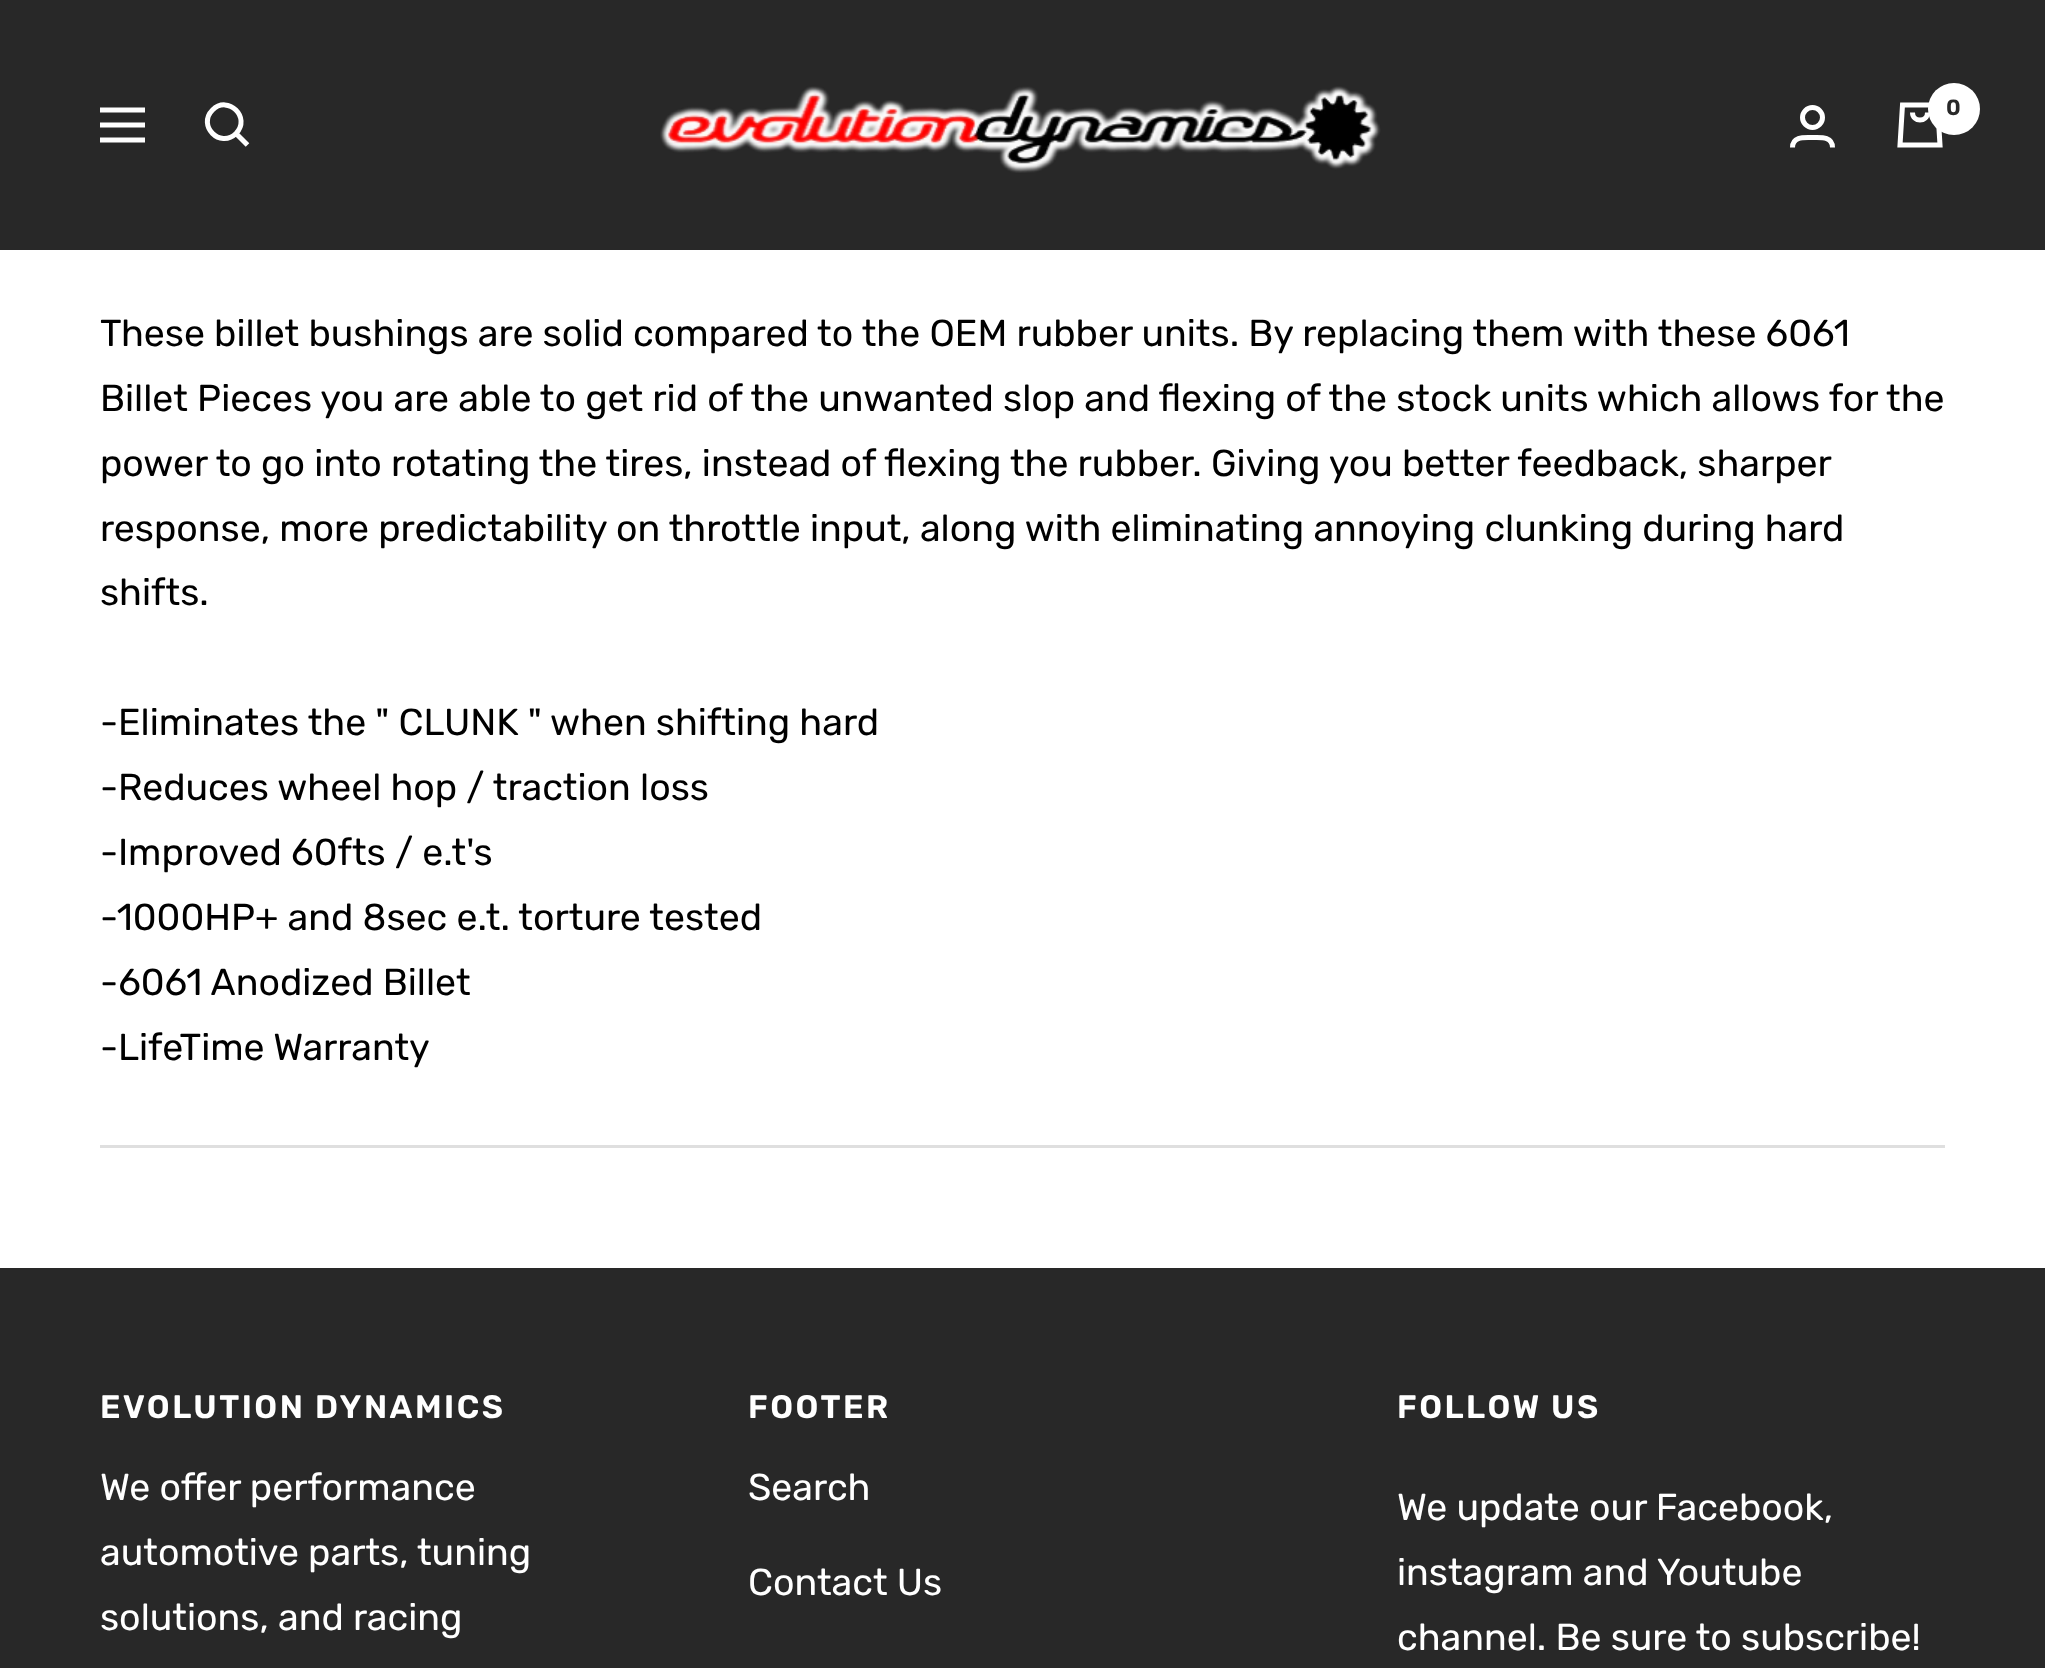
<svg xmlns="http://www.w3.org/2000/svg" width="2045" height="1668">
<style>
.a{font:600 22px Rubik;fill:#282828}
.b{font:37.5px Rubik;fill:#000}
.c{font:600 32.5px Rubik;letter-spacing:2.5px;fill:#fff}
.d{font:37.5px Rubik;fill:#fff}
</style>
<rect width="100%" height="100%" fill="#fff"/>
<path fill="#282828" d="M0 0h2045v250H0z"/>
<path fill="none" stroke="#fff" stroke-width="5" d="M100 110h45m-45 30h45zm0-15h45z"/>
<path fill="none" stroke="#fff" stroke-width="5" d="M236 133.5c15.5-16-8-39-23.5-23.5c-15.5 15.5 7.5 39 23.5 23.5zm0 0l11.5 11.5"/>
<image href="1.png" x="660" y="86" width="721" height="87"/>
<circle fill="none" stroke="#fff" stroke-width="5" cx="1812.5" cy="117.5" r="10"/>
<path fill="none" stroke="#fff" stroke-width="5" d="M1792.5 147.5c0-11.5 12-10 20-10c8 0 20-1.5 20 10"/>
<path fill="none" stroke="#fff" stroke-width="5" d="M1902.5 105h35l2.5 40h-40zm10 7.5c0 10 15 10 15 0"/>
<circle fill="#fff" cx="1954" cy="109" r="26"/>
<path fill="#dfdfdf" d="M100 1145h1845v3H100z"/>
<path fill="#282828" d="M0 1268h2045v400H0z"/>
<text class="a" x="1946" y="115">0</text>
<text class="b" x="100" y="346">These billet bushings are solid compared to the OEM rubber units. By replacing them with these 6061</text>
<text class="b" x="100" y="411">Billet Pieces you are able to get rid of the unwanted slop and flexing of the stock units which allows for the</text>
<text class="b" x="100" y="476">power to go into rotating the tires, instead of flexing the rubber. Giving you better feedback, sharper</text>
<text class="b" x="100" y="541">response, more predictability on throttle input, along with eliminating annoying clunking during hard</text>
<text class="b" x="100" y="605">shifts.</text>
<text class="b" x="100" y="735">-Eliminates the " CLUNK " when shifting hard</text>
<text class="b" x="100" y="800">-Reduces wheel hop / traction loss</text>
<text class="b" x="100" y="865">-Improved 60fts / e.t's</text>
<text class="b" x="100" y="930">-1000HP+ and 8sec e.t. torture tested</text>
<text class="b" x="100" y="995">-6061 Anodized Billet</text>
<text class="b" x="100" y="1060">-LifeTime Warranty</text>
<text class="c" x="100" y="1418">EVOLUTION DYNAMICS</text>
<text class="d" x="100" y="1500">We offer performance</text>
<text class="d" x="100" y="1565">automotive parts, tuning</text>
<text class="d" x="100" y="1630">solutions, and racing</text>
<text class="c" x="748" y="1418">FOOTER</text>
<text class="d" x="748" y="1500">Search</text>
<text class="d" x="748" y="1595">Contact Us</text>
<text class="c" x="1397" y="1418">FOLLOW US</text>
<text class="d" x="1397" y="1520">We update our Facebook,</text>
<text class="d" x="1397" y="1585">instagram and Youtube</text>
<text class="d" x="1397" y="1650">channel. Be sure to subscribe!</text>
</svg>
